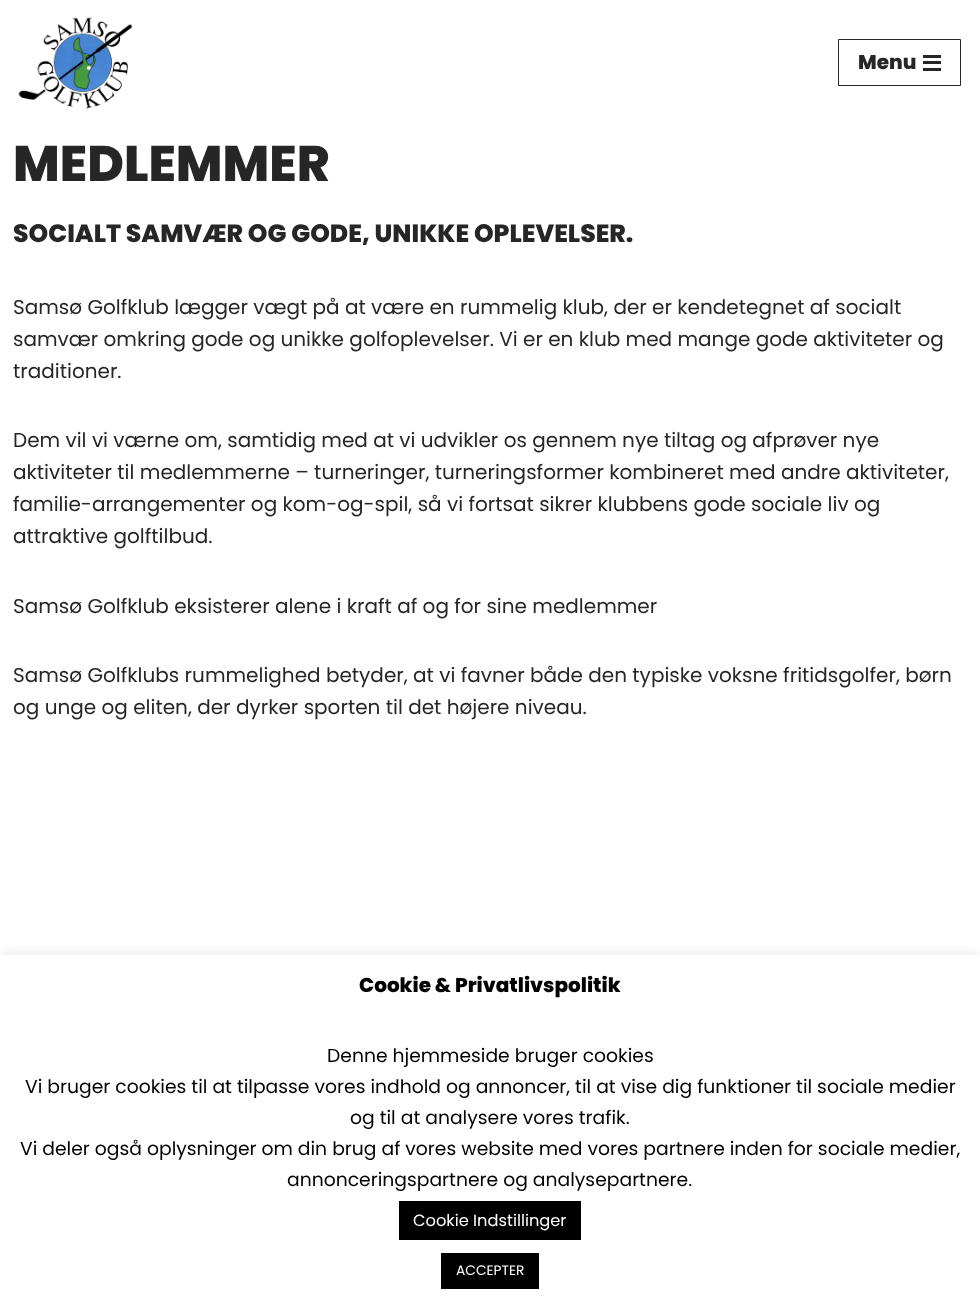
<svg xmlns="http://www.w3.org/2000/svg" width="980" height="1309">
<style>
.a{font:800 20px Poppins;fill:#272626}
.b{font:800 50px Poppins;fill:#272626}
.c{font:800 25px Poppins;fill:#272626}
.d{font:20px Poppins;fill:#272626}
.e{font:800 20px Poppins;fill:#000}
.f{font:18.75px Poppins;fill:#000}
.g{font:16.25px Poppins;fill:#fff}
.h{font:13.75px Poppins;fill:#fff}
</style>
<defs>
<clipPath id="clip1"><path d="M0 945h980v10H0z"/></clipPath>
</defs>
<rect width="100%" height="100%" fill="#fff"/>
<image href="1.png" x="18" y="17" width="115" height="92"/>
<path fill="none" stroke="#272626" d="M838.5 39.5h122v46H838.5z"/>
<path fill="#272626" d="M923 55h18v3H923z"/>
<path fill="#272626" d="M923 61h18v3H923z"/>
<path fill="#272626" d="M923 68h18v3H923z"/>
<g clip-path="url(#clip1)">
<path fill="#acabab4d" filter="blur(6px)" d="M0 954h980v355H0z"/>
</g>
<path fill="#000" d="M399 1201h182v39H399z"/>
<path fill="#000" d="M441 1253h98v36H441z"/>
<text class="a" x="858" y="69">Menu</text>
<text class="b" x="13" y="181">MEDLEMMER</text>
<text class="c" x="13" y="242">SOCIALT SAMVÆR OG GODE, UNIKKE OPLEVELSER.</text>
<text class="d" x="13" y="314">Samsø Golfklub lægger vægt på at være en rummelig klub, der er kendetegnet af socialt</text>
<text class="d" x="13" y="346">samvær omkring gode og unikke golfoplevelser. Vi er en klub med mange gode aktiviteter og</text>
<text class="d" x="13" y="378">traditioner.</text>
<text class="d" x="13" y="447">Dem vil vi værne om, samtidig med at vi udvikler os gennem nye tiltag og afprøver nye</text>
<text class="d" x="13" y="479">aktiviteter til medlemmerne – turneringer, turneringsformer kombineret med andre aktiviteter,</text>
<text class="d" x="13" y="511">familie-arrangementer og kom-og-spil, så vi fortsat sikrer klubbens gode sociale liv og</text>
<text class="d" x="13" y="543">attraktive golftilbud.</text>
<text class="d" x="13" y="613">Samsø Golfklub eksisterer alene i kraft af og for sine medlemmer</text>
<text class="d" x="13" y="682">Samsø Golfklubs rummelighed betyder, at vi favner både den typiske voksne fritidsgolfer, børn</text>
<text class="d" x="13" y="714">og unge og eliten, der dyrker sporten til det højere niveau.</text>
<text class="e" x="359" y="992">Cookie &amp; Privatlivspolitik</text>
<text class="f" x="327" y="1062">Denne hjemmeside bruger cookies</text>
<text class="f" x="25" y="1093">Vi bruger cookies til at tilpasse vores indhold og annoncer, til at vise dig funktioner til sociale medier</text>
<text class="f" x="350" y="1124">og til at analysere vores trafik.</text>
<text class="f" x="20" y="1155">Vi deler også oplysninger om din brug af vores website med vores partnere inden for sociale medier,</text>
<text class="f" x="287" y="1186">annonceringspartnere og analysepartnere.</text>
<text class="g" x="413" y="1226">Cookie Indstillinger</text>
<text class="h" x="456" y="1275">ACCEPTER</text>
</svg>
